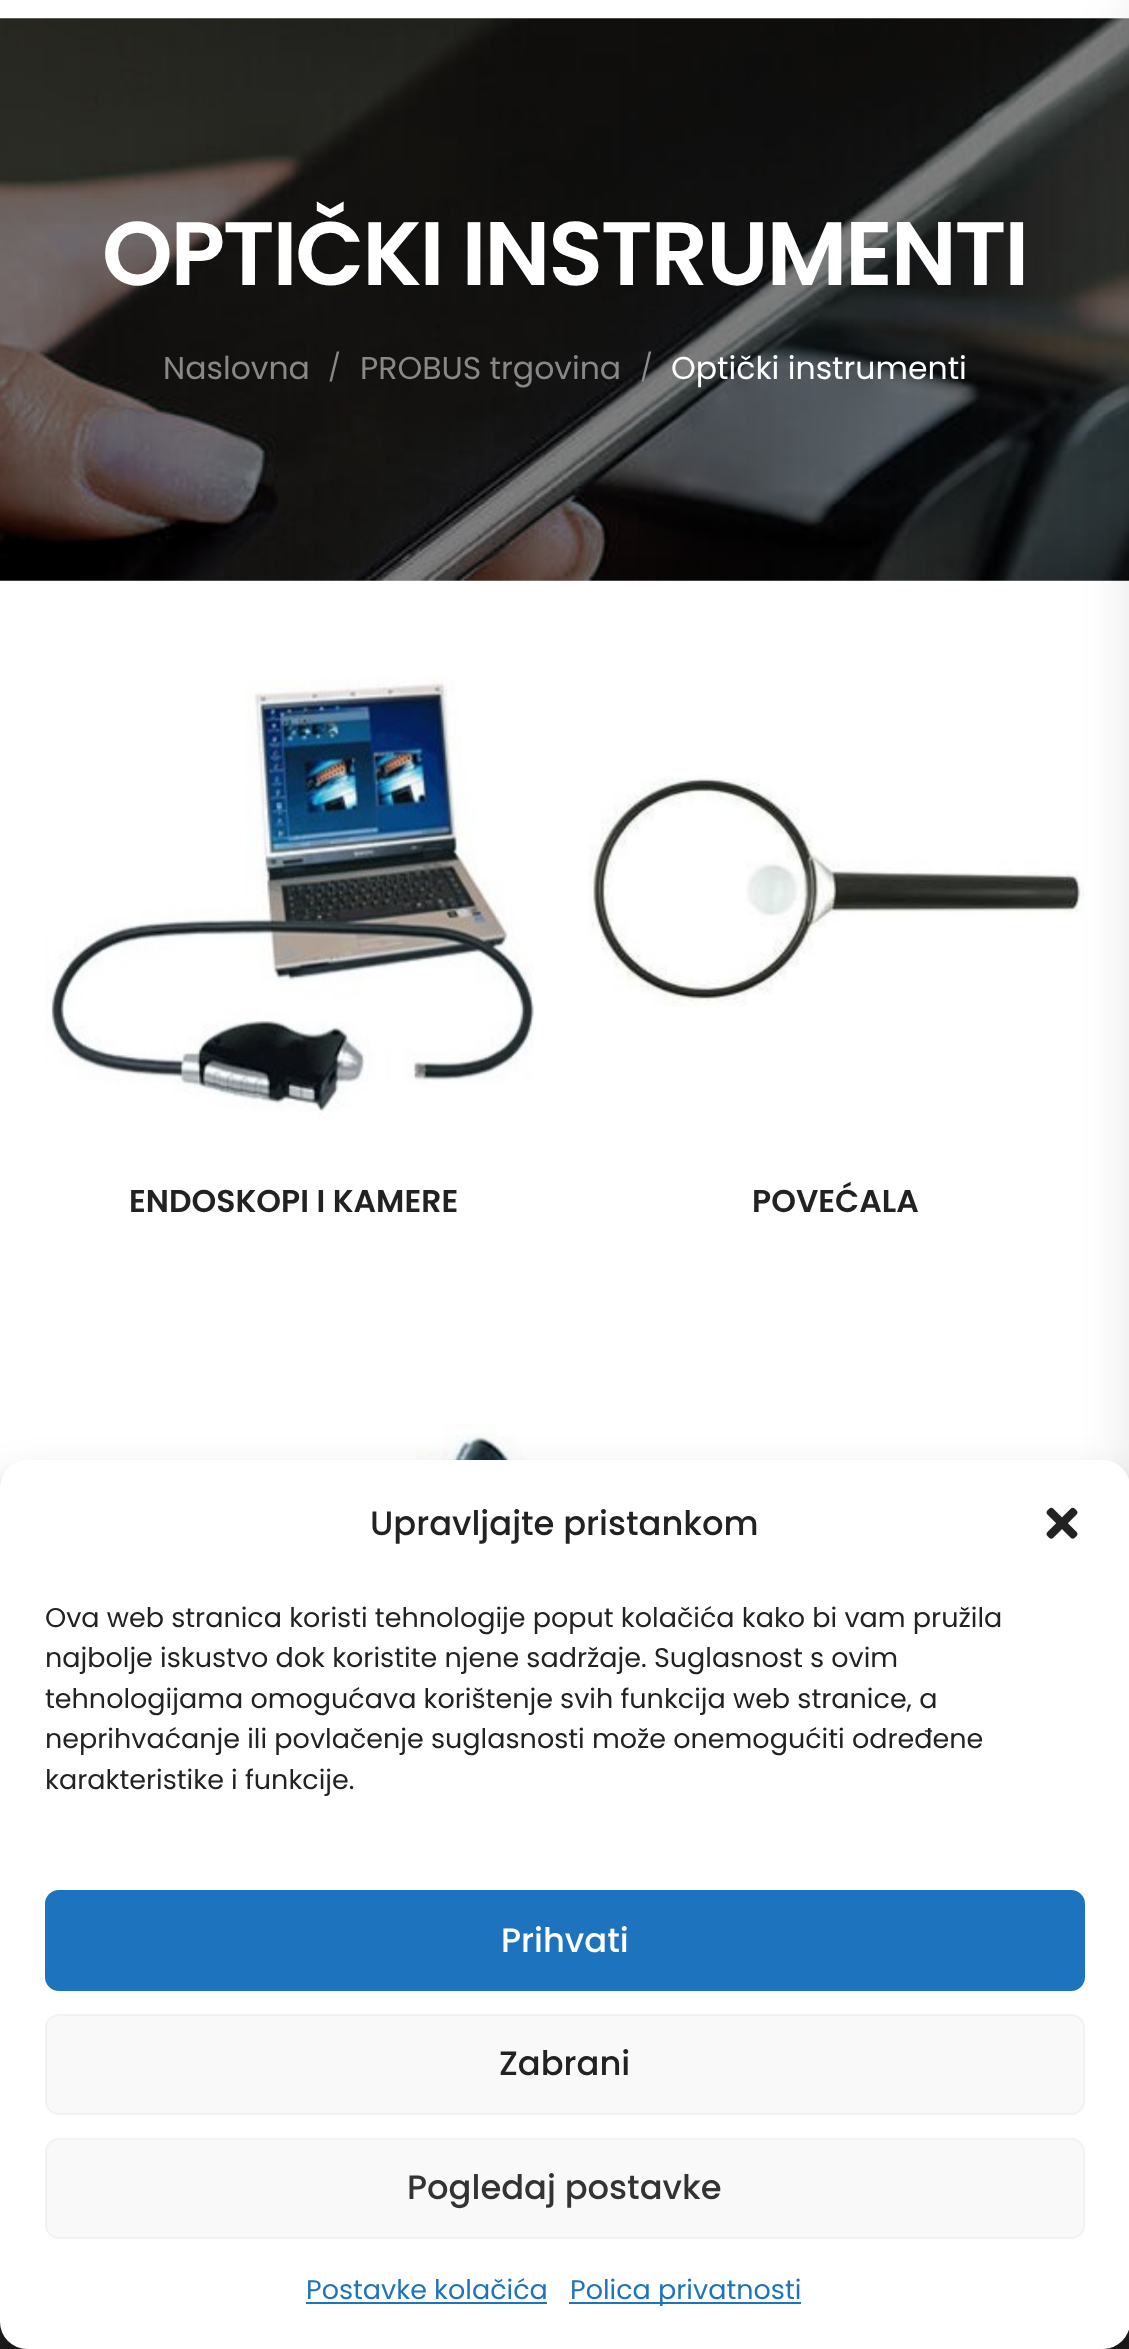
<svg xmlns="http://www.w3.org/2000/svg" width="1129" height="2349">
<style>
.a{font:600 90px Poppins;letter-spacing:-2.25px;fill:#fff}
.b{font:31.5px Poppins;fill:#898887}
.c{font:27px Poppins;fill:#898887}
.d{font:27px Poppins;fill:#8c8c8d}
.e{font:31.5px Poppins;fill:#fff}
.f{font:600 31.5px Poppins;fill:#222}
.g{font:500 33.75px Poppins;fill:#222}
.h{font:27px Poppins;fill:#222}
.i{font:500 33.75px Poppins;fill:#fff}
.j{font:500 33.75px Poppins;fill:#333}
.k{font:27px Poppins;fill:#1e73be}
</style>
<rect width="100%" height="100%" fill="#fff"/>
<image href="1.png" x="0" y="18" width="1129" height="563"/>
<image href="3.png" x="588" y="775" width="496" height="232"/>
<path fill="#222" d="M0 2322h1129v27H0z"/>
<path fill="#0000001a" filter="blur(25px)" d="M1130 5h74v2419H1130z"/>
<image href="2.png" x="45" y="676" width="489" height="444"/>
<image href="4.png" x="45" y="1424" width="491" height="36"/>
<rect fill="#0000003b" filter="blur(7px)" y="1474" width="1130" height="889" rx="27"/>
<rect fill="#00000030" filter="blur(22.5px)" y="1483" width="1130" height="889" rx="27"/>
<rect fill="#fff" y="1460" width="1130" height="889" rx="27"/>
<image href="5.png" x="1046" y="1507" width="32" height="32"/>
<rect fill="#1e73be" stroke="#1e73be" stroke-width="2" x="46" y="1891" width="1038" height="99" rx="13"/>
<rect fill="#f9f9f9" stroke="#f2f2f2" stroke-width="2" x="46" y="2015" width="1038" height="99" rx="13"/>
<rect fill="#f9f9f9" stroke="#f2f2f2" stroke-width="2" x="46" y="2139" width="1038" height="99" rx="13"/>
<path fill="#1e73be" d="M306 2302h241v2H306z"/>
<path fill="#1e73be" d="M569 2302h232v2H569z"/>
<text class="a" x="102" y="285">OPTIČKI INSTRUMENTI</text>
<text class="b" x="163" y="379">Naslovna</text>
<text class="c" x="328" y="377">/</text>
<text class="b" x="360" y="379">PROBUS trgovina</text>
<text class="d" x="640" y="377">/</text>
<text class="e" x="671" y="379">Optički instrumenti</text>
<text class="f" x="129" y="1212">ENDOSKOPI I KAMERE</text>
<text class="f" x="752" y="1212">POVEĆALA</text>
<text class="g" x="370" y="1535">Upravljajte pristankom</text>
<text class="h" x="45" y="1627">Ova web stranica koristi tehnologije poput kolačića kako bi vam pružila</text>
<text class="h" x="45" y="1667">najbolje iskustvo dok koristite njene sadržaje. Suglasnost s ovim</text>
<text class="h" x="45" y="1708">tehnologijama omogućava korištenje svih funkcija web stranice, a</text>
<text class="h" x="45" y="1748">neprihvaćanje ili povlačenje suglasnosti može onemogućiti određene</text>
<text class="h" x="45" y="1789">karakteristike i funkcije.</text>
<text class="i" x="501" y="1952">Prihvati</text>
<text class="g" x="499" y="2075">Zabrani</text>
<text class="j" x="407" y="2199">Pogledaj postavke</text>
<text class="k" x="306" y="2299">Postavke kolačića</text>
<text class="k" x="570" y="2299">Polica privatnosti</text>
</svg>
